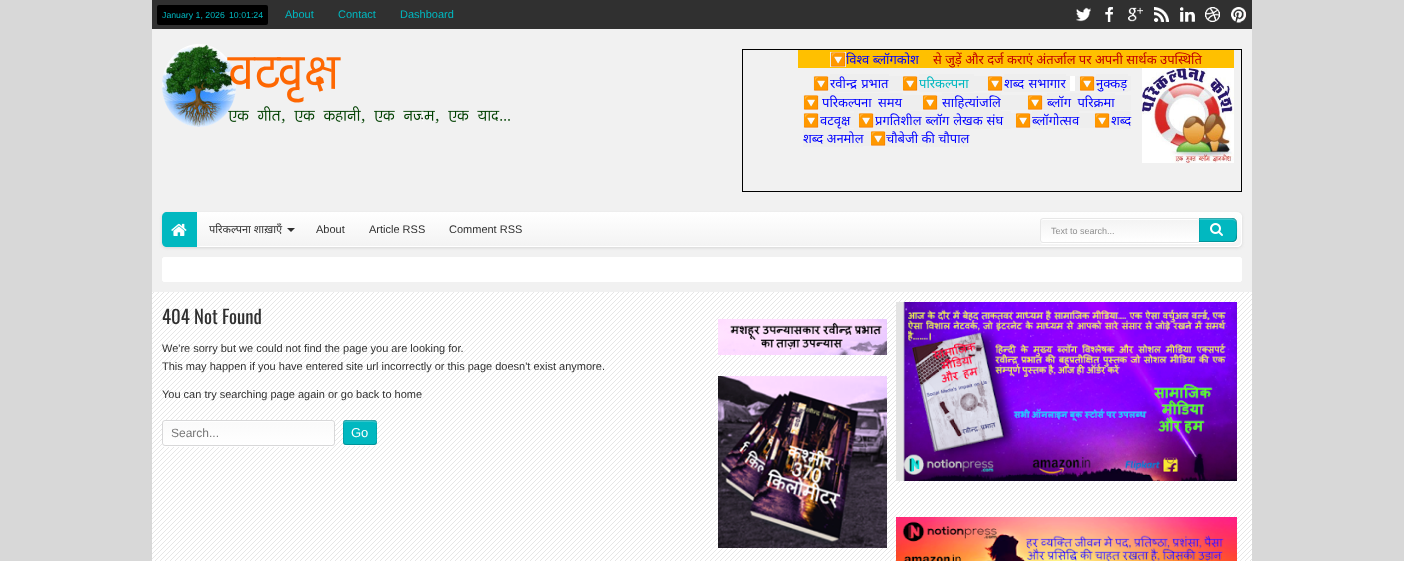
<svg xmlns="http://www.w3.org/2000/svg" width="1404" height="561">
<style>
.a{font:8.75px Liberation Sans;fill:#01b8c0}
.b{font:11px Liberation Sans;fill:#01b8c0}
.c{font:bold 13px Noto Color Emoji;fill:#00f}
.d{font:13px Noto Sans;fill:#00f}
.e{font:13px Noto Sans;fill:#c00000}
.f{font:13px Noto Color Emoji;fill:#00f}
.g{font:13px Noto Sans;fill:#01b8c0}
.h{font:11px Noto Sans;fill:#303030}
.i{font:11px Liberation Sans;fill:#303030}
.j{font:9px Liberation Sans;fill:#8f8f8f}
.k{font:18.75px Oswald;fill:#303030}
.l{font:12px Liberation Sans;fill:#777}
.m{font:13px Liberation Sans;fill:#fff}
</style>
<defs>
<linearGradient id="g1" gradientUnits="userSpaceOnUse" x1="702" y1="212" x2="702" y2="247"><stop offset="0" stop-color="#fff"/><stop offset="1" stop-color="#f3f3f3"/></linearGradient>
<clipPath id="clip1"><rect x="1040" y="218" width="160" height="25" rx="3"/></clipPath>
<linearGradient id="g2" gradientUnits="userSpaceOnUse" x1="1120" y1="219" x2="1120" y2="242"><stop offset="0" stop-color="#f3f3f3"/><stop offset="1" stop-color="#fff"/></linearGradient>
<clipPath id="clip2"><rect x="162" y="420" width="173" height="26" rx="3"/></clipPath>
<linearGradient id="g3" gradientUnits="userSpaceOnUse" x1="249" y1="421" x2="249" y2="445"><stop offset="0" stop-color="#fafafa"/><stop offset="1" stop-color="#fff"/></linearGradient>
</defs>
<rect width="100%" height="100%" fill="#d8d8d8"/>
<path fill="#f1f1f1" d="M152 29h1100v263H152z"/>
<path fill="#303030" d="M152 0h1100v29H152z"/>
<rect fill="#000" x="157" y="5" width="111" height="20" rx="2"/>
<image href="1.png" x="1076" y="7" width="15" height="15"/>
<image href="2.png" x="1105" y="7" width="8" height="15"/>
<image href="3.png" x="1128" y="7" width="15" height="15"/>
<image href="4.png" x="1154" y="7" width="15" height="15"/>
<image href="5.png" x="1180" y="7" width="15" height="15"/>
<image href="6.png" x="1205" y="7" width="15" height="15"/>
<image href="7.png" x="1231" y="7" width="15" height="16"/>
<image href="8.png" x="162" y="44" width="348" height="83"/>
<path fill="#000" d="M742 49h500v1H742z"/>
<path fill="#000" d="M1241 49h1v143H1241z"/>
<path fill="#000" d="M742 191h500v1H742z"/>
<path fill="#000" d="M742 49h1v143H742z"/>
<path fill="#ffc000" d="M798 50h436v18H798z"/>
<path fill="#eee" d="M830 52h16v15H830z"/>
<path fill="#eee" d="M813 76h17v15H813z"/>
<path fill="#eee" d="M830 74h59v18H830z"/>
<path fill="#eee" d="M889 76h30v15H889z"/>
<path fill="#eee" d="M919 74h55v18H919z"/>
<path fill="#eee" d="M974 76h30v15H974z"/>
<image href="9.png" x="1142" y="68" width="92" height="95"/>
<path fill="#eee" d="M1004 74h62v18H1004z"/>
<path fill="#fff" d="M1070 76h5v15H1070z"/>
<path fill="#eee" d="M1075 76h21v15H1075z"/>
<path fill="#eee" d="M1096 74h32v18H1096z"/>
<path fill="#eee" d="M1128 76h3v15H1128z"/>
<path fill="#eee" d="M803 95h19v15H803z"/>
<path fill="#eee" d="M822 93h81v18H822z"/>
<path fill="#eee" d="M903 95h39v15H903z"/>
<path fill="#eee" d="M942 93h59v18H942z"/>
<path fill="#eee" d="M1001 95h46v15H1001z"/>
<path fill="#eee" d="M1047 93h68v18H1047z"/>
<path fill="#eee" d="M1115 95h16v15H1115z"/>
<path fill="#eee" d="M803 113h17v15H803z"/>
<path fill="#eee" d="M854 111h4v18H854z"/>
<path fill="#eee" d="M858 113h17v15H858z"/>
<path fill="#eee" d="M875 111h136v18H875z"/>
<path fill="#eee" d="M1011 113h21v15H1011z"/>
<path fill="#eee" d="M820 111h30v18H820z"/>
<path fill="#eee" d="M850 113h4v15H850z"/>
<path fill="#eee" d="M1032 111h47v18H1032z"/>
<path fill="#eee" d="M1079 113h32v15H1079z"/>
<path fill="#eee" d="M1111 111h20v18H1111z"/>
<path fill="#eee" d="M803 129h60v18H803z"/>
<path fill="#eee" d="M863 131h23v15H863z"/>
<path fill="#eee" d="M886 129h83v18H886z"/>
<rect fill="#d6d6d6" filter="blur(1.5px)" x="162" y="213" width="1080" height="35" rx="5"/>
<rect fill="url(#g1)" x="162" y="212" width="1080" height="35" rx="5"/>
<path fill="#fff" d="M163 245c1 1 3 2 4 2h1070c3 0 5-2 5-5v-25c0-1-1-3-2-4l1 3v25c0 3-2 5-5 5h-1070z"/>
<path fill="#01b8c0" d="M167 212h30v35h-30c-3 0-5-2-5-5v-25c0-3 2-5 5-5z"/>
<image href="10.png" x="171" y="223" width="16" height="13"/>
<path fill="#303030" d="M287 228h8l-4 4z"/>
<path fill="#fff" d="M1040 240c0 2 1 4 3 4h155c2 0 2-2 2-4c0 2-1 3-3 3h-154c-2 0-3-1-3-3z"/>
<g clip-path="url(#clip1)">
<path fill="url(#g2)" d="M1040 219h159v23H1040z"/>
</g>
<path fill="#fff" d="M1043 220h154c1 0 2 1 2 2c0-1 0-3-2-3h-154c-2 0-2 2-2 3c0-1 1-2 2-2z"/>
<rect fill="none" stroke="#e7e7e7" x="1040.5" y="218.5" width="159" height="24" rx="2.5"/>
<path fill="#fff" d="M1199 242v1h33c3 0 5-2 5-5v-1c0 3-2 5-5 5z"/>
<path fill="#01b8c0" d="M1199 218h33c3 0 5 2 5 5v14c0 3-2 5-5 5h-33z"/>
<path fill="#01a6ad" d="M1199 218h1v24H1199z"/>
<path fill="#0000001a" d="M1231 242c7.5 0 6-6.5 6-12c0-5.5 1.5-12-6-12c4.5 .5 5 2.5 5 12c0 9.5-.5 11.5-5 12z"/>
<path fill="#00000033" d="M1199 241v1h33c3 0 5-2 5-5v-14l-.5-2c1 4 1 16.5-1 18.5c-1 1-2.5 1.5-3.5 1.5z"/>
<path fill="#00000033" d="M1199 219h33c1 0 2.5 .5 3.5 1.5c2 2 2 14.5 1 18.5l.5-2v-14c0-3-2-5-5-5h-33z"/>
<path fill="#ffffff33" d="M1199 220h33c1 0 2.5 .5 3.5 1.5c2 2 1.5 12.5 1.5 17v-16.5c-1-5-7-4-10.5-4h-27.5z"/>
<image href="11.png" x="1210" y="223" width="13" height="13"/>
<rect fill="#fff" stroke="#fff" x="162.5" y="257.5" width="1079" height="24" rx="1.5"/>
<image href="12.png" x="152" y="292" width="1100" height="269"/>
<path fill="#fff" d="M162 443v1c0 2 1 3 3 3h167c2 0 3-1 3-3v-1c0 2-1 3-3 3h-167c-2 0-3-1-3-3z"/>
<g clip-path="url(#clip2)">
<path fill="url(#g3)" d="M162 421h173v24H162z"/>
</g>
<path fill="#fff" d="M165 422h167c1 0 2 1 2 2c0-1 0-3-2-3h-168c-1 1-1 2-1 3c0-1 1-2 2-2z"/>
<rect fill="none" stroke="#d8d8d9" x="162.5" y="420.5" width="172" height="25" rx="2.5"/>
<path fill="#fff" d="M343 442c0 5 3.5 4 7.5 4h19c4 0 7.5 1 7.5-4c0 1.5-1.5 3-3 3h-28c-1.5 0-3-1.5-3-3z"/>
<rect fill="#01b8c0" x="343" y="420" width="34" height="25" rx="3"/>
<path fill="#0000001a" fill-rule="evenodd" d="M346 420c-1.5 0-3 1.5-3 3v19c0 1.5 1.5 3 3 3h1c-2.5 0-3-1.5-3-6v-13c0-2 0-6 3-6zm24 0l5.5 .5c-1.5-1-4-.5-5.5-.5z"/>
<path fill="#0000001a" d="M373 445h1c1.5 0 3-1.5 3-3v-19c0-1.5-1.5-3-3-3h-6c8.5 0 8.5 1.5 8 7v7.5c.5 4 1 10.5-3 10.5z"/>
<path fill="#00000033" fill-rule="evenodd" d="M343 422v3zm0 16c0 7 0 7 7.5 7h19c3.5 0 7.5 1 7.5-3.5c-.5 1.5-1.5 2.5-3 2.5h-25.5c-4.5 0-5.5 0-5.5-6zm3-17h23c5 0 7.5 .5 8 2c0-1.5-1.5-3-3-3h-28c-1.5 0-3 1.5-3 3v4c0-2 0-6 3-6zm-3 21.5v-2.5z"/>
<path fill="#ffffff33" fill-rule="evenodd" d="M346 422h23c5 0 7.5 .5 8 2c0-5-3.5-4-7.5-4h-19c-8.5 0-7.5 .5-7.5 8c0-2 0-6 3-6zm-3 20.5v-1.5z"/>
<image href="13.png" x="718" y="319" width="169" height="36"/>
<image href="14.png" x="718" y="376" width="169" height="172"/>
<image href="15.png" x="896" y="302" width="341" height="179"/>
<image href="16.png" x="896" y="517" width="341" height="44"/>
<text class="a" x="162" y="18">January 1, 2026</text>
<text class="a" x="229" y="18">10:01:24</text>
<text class="b" x="285" y="18">About</text>
<text class="b" x="338" y="18">Contact</text>
<text class="b" x="400" y="18">Dashboard</text>
<text class="c" x="830" y="64">🔽</text>
<text class="d" x="846" y="64">विश्व ब्लॉगकोश</text>
<text class="e" x="933" y="64">से जुड़ें और दर्ज कराएं अंतर्जाल पर अपनी सार्थक उपस्थिति</text>
<text class="f" x="813" y="88">🔽</text>
<text class="d" x="830" y="88" word-spacing="1">रवीन्द्र प्रभात</text>
<text class="f" x="902" y="88">🔽</text>
<text class="g" x="919" y="88">परिकल्पना</text>
<text class="f" x="987" y="88">🔽</text>
<text class="d" x="1004" y="88" word-spacing="1">शब्द सभागार</text>
<path fill="#eee" d="M1066 76h4v15H1066z"/>
<text class="f" x="1079" y="88">🔽</text>
<text class="d" x="1096" y="88">नुक्कड़</text>
<text class="f" x="803" y="107">🔽</text>
<text class="d" x="822" y="107" word-spacing="3">परिकल्पना समय</text>
<text class="f" x="922" y="107">🔽</text>
<text class="d" x="942" y="107">साहित्यांजलि</text>
<text class="f" x="1027" y="107">🔽</text>
<text class="d" x="1047" y="107" word-spacing="3">ब्लॉग परिक्रमा</text>
<text class="f" x="803" y="125">🔽</text>
<text class="f" x="858" y="125">🔽</text>
<text class="d" x="875" y="125" word-spacing="0.5">प्रगतिशील ब्लॉग लेखक संघ</text>
<text class="d" x="820" y="125">वटवृक्ष</text>
<text class="f" x="1015" y="125">🔽</text>
<text class="d" x="1032" y="125">ब्लॉगोत्सव</text>
<text class="f" x="1094" y="125">🔽</text>
<text class="d" x="1111" y="125">शब्द</text>
<text class="d" x="803" y="143">शब्द अनमोल</text>
<text class="f" x="870" y="143">🔽</text>
<text class="d" x="886" y="143">चौबेजी की चौपाल</text>
<text class="h" x="209" y="233">परिकल्पना शाख़ाएँ</text>
<text class="i" x="316" y="233">About</text>
<text class="i" x="369" y="233">Article RSS</text>
<text class="i" x="449" y="233">Comment RSS</text>
<text class="j" x="1051" y="234">Text to search...</text>
<text class="k" x="162" y="324">404 Not Found</text>
<text class="i" x="162" y="352">We're sorry but we could not find the page you are looking for.</text>
<text class="i" x="162" y="370">This may happen if you have entered site url incorrectly or this page doesn't exist anymore.</text>
<text class="i" x="162" y="398">You can try searching page again or go back to home</text>
<text class="l" x="171" y="437">Search...</text>
<text class="m" x="351" y="437">Go</text>
</svg>
